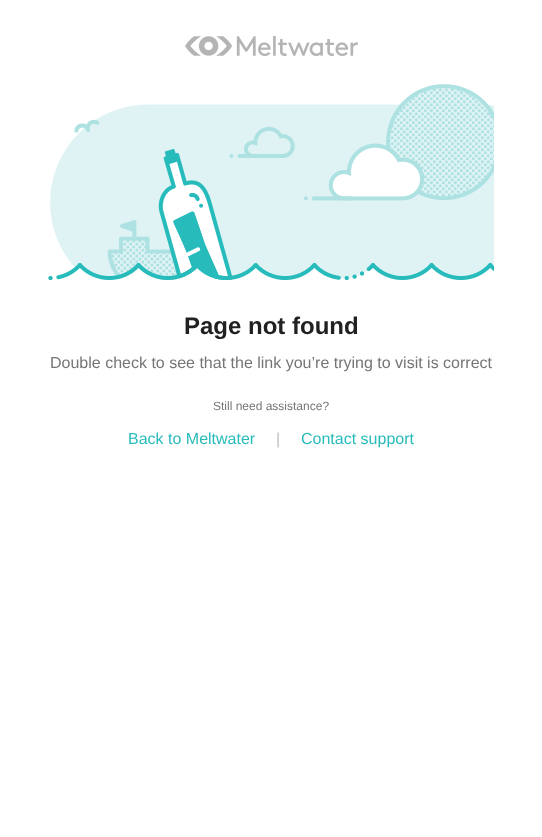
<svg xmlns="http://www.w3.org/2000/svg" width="542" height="837">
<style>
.a{font:bold 24px Liberation Sans;fill:#212121}
.b{font:16px Liberation Sans;fill:#757575}
.c{font:12px Liberation Sans;fill:#757575}
.d{font:16px Liberation Sans;fill:#28bbbb}
.e{font:16px Liberation Sans;fill:#bdbdbd}
</style>
<rect width="100%" height="100%" fill="#fff"/>
<image href="1.png" x="185" y="36" width="173" height="20"/>
<image href="2.png" x="48" y="84" width="446" height="197"/>
<text class="a" x="184" y="334">Page not found</text>
<text class="b" x="50" y="368">Double check to see that the link you’re trying to visit is correct</text>
<text class="c" x="213" y="410">Still need assistance?</text>
<text class="d" x="128" y="444">Back to Meltwater</text>
<text class="e" x="276" y="444">|</text>
<text class="d" x="301" y="444">Contact support</text>
</svg>
